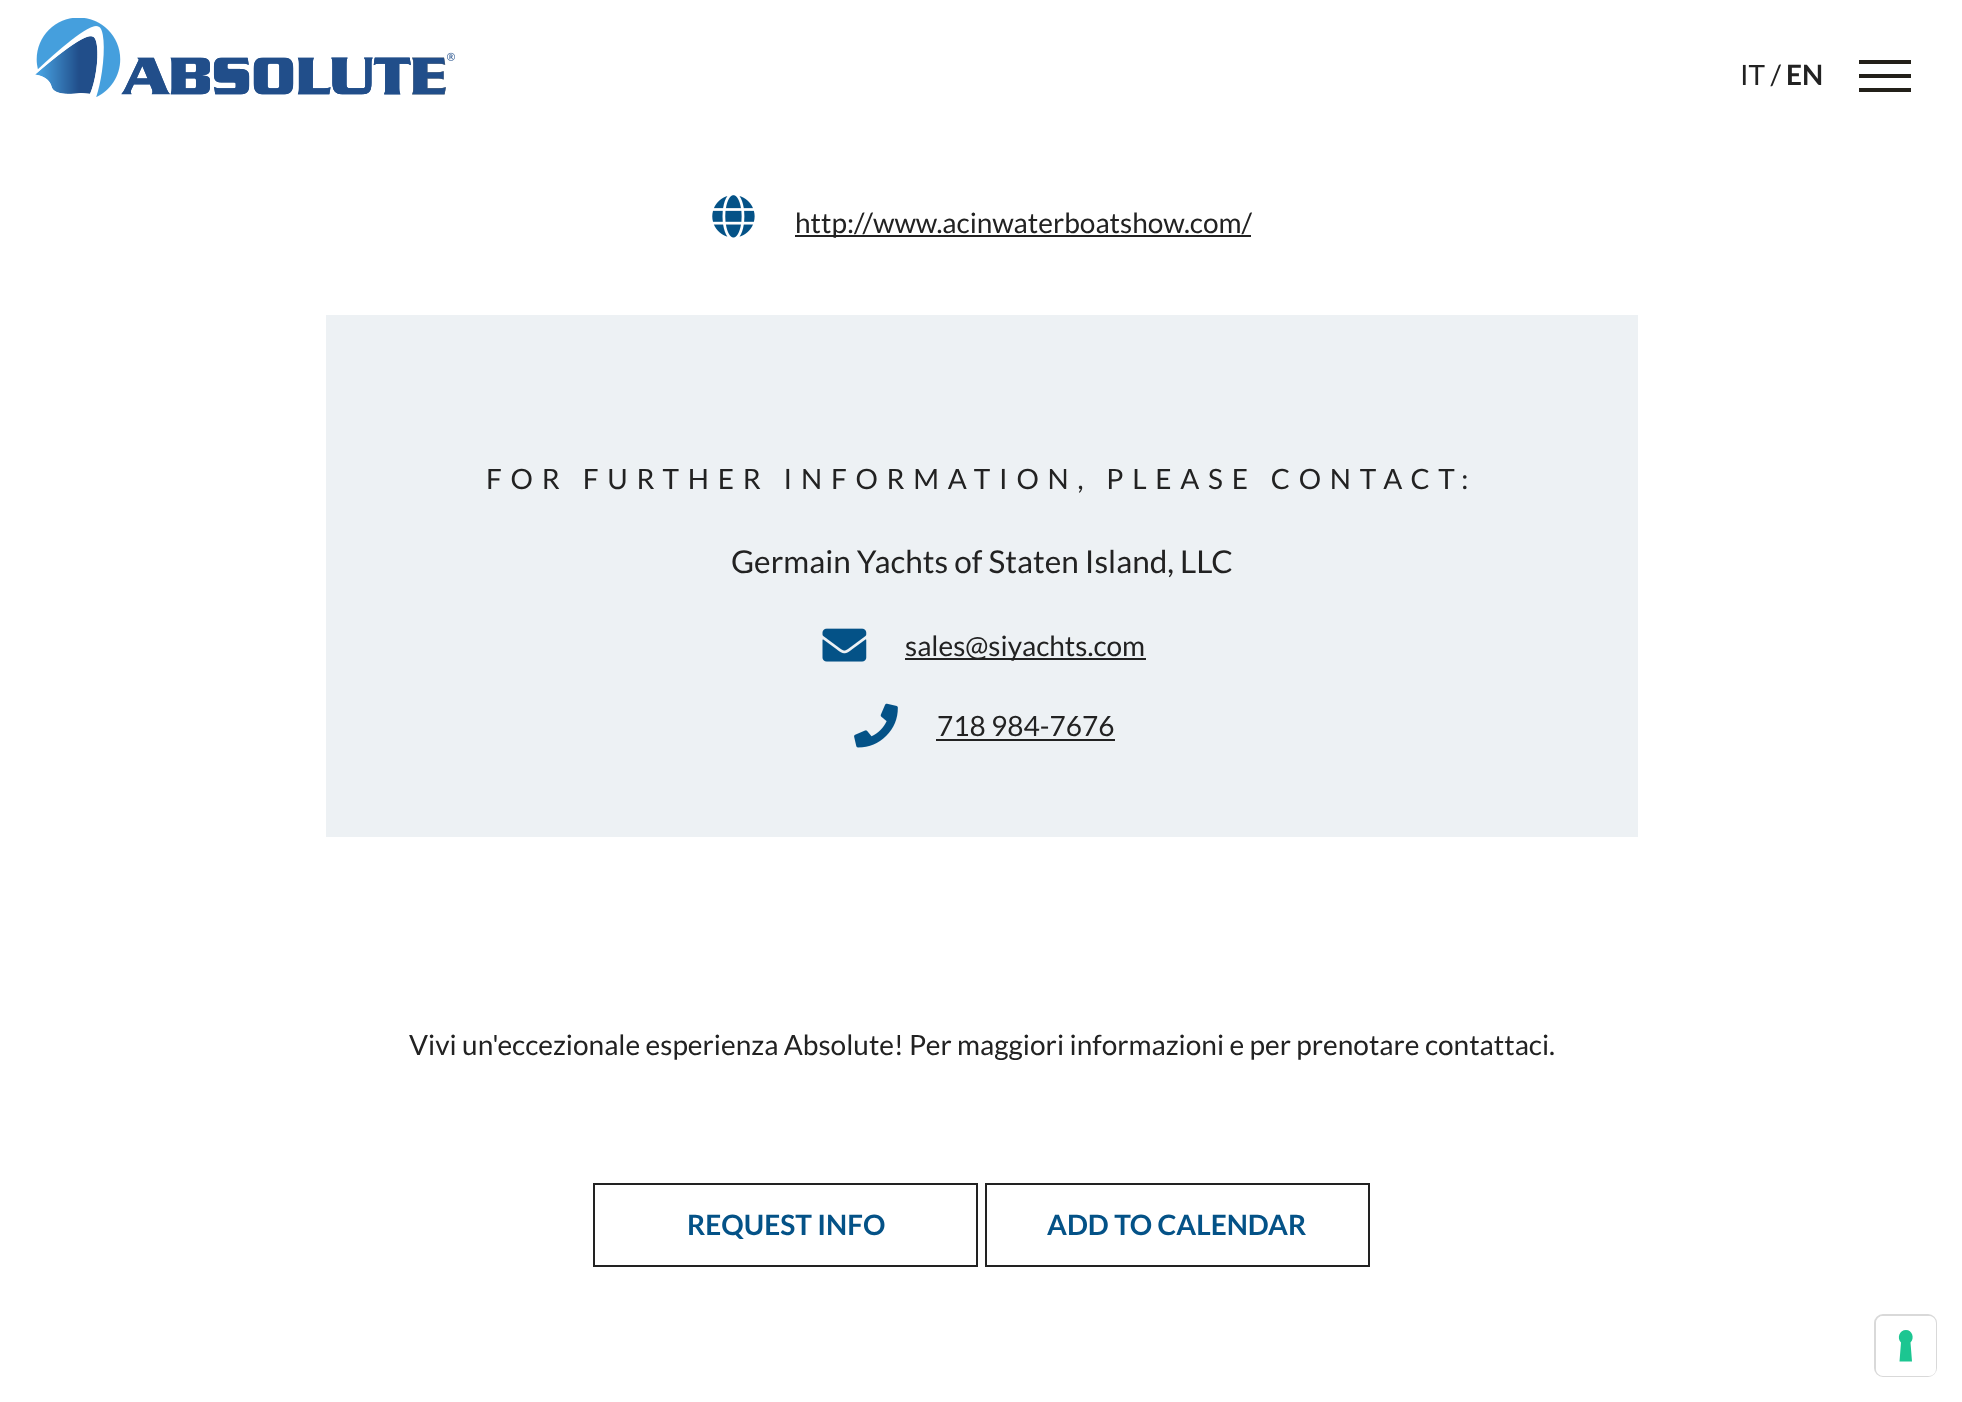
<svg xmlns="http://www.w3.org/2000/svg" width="1962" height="1402">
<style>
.a{font:28px Lato;fill:#222}
.b{font:bold 28px Lato;fill:#222}
.c{font:28px Lato;letter-spacing:8.75px;fill:#222}
.d{font:31.5px Lato;fill:#222}
.e{font:bold 28px Lato;fill:#045287}
</style>
<rect width="100%" height="100%" fill="#fff"/>
<image href="1.png" x="35" y="18" width="420" height="79"/>
<path fill="#232019" d="M1859 60h52v4H1859z"/>
<path fill="#232019" d="M1859 74h52v4H1859z"/>
<path fill="#232019" d="M1859 88h52v4H1859z"/>
<image href="2.png" x="712" y="195" width="43" height="43"/>
<path fill="#222" d="M795 235h456v2H795z"/>
<path fill="#edf1f4" d="M326 315h1312v522H326z"/>
<image href="3.png" x="822" y="628" width="45" height="34"/>
<path fill="#222" d="M905 658h241v2H905z"/>
<image href="4.png" x="854" y="703" width="44" height="45"/>
<path fill="#222" d="M936 739h179v2H936z"/>
<path fill="none" stroke="#222" stroke-width="2" d="M594 1184h383v82H594z"/>
<path fill="none" stroke="#222" stroke-width="2" d="M986 1184h383v82H986z"/>
<rect fill="none" stroke="#d9d9d9" stroke-width="2" x="1875" y="1315" width="61" height="61" rx="8"/>
<rect fill="#fff" x="1876" y="1316" width="60" height="60" rx="7"/>
<path fill="#1cc691" fill-rule="evenodd" d="M1906 1330c6 0 9 8 4.5 12.5l1.5 19h-12.5l1.5-19c-4.5-4.5-1.5-12.5 5-12.5z"/>
<text class="a" x="1740" y="85">IT /</text>
<text class="b" x="1786" y="85">EN</text>
<text class="a" x="795" y="233">http://www.acinwaterboatshow.com/</text>
<text class="c" x="486" y="489">FOR FURTHER INFORMATION, PLEASE CONTACT:</text>
<text class="d" x="731" y="573">Germain Yachts of Staten Island, LLC</text>
<text class="a" x="905" y="656">sales@siyachts.com</text>
<text class="a" x="937" y="736">718 984-7676</text>
<text class="a" x="409" y="1055">Vivi un'eccezionale esperienza Absolute! Per maggiori informazioni e per prenotare contattaci.</text>
<text class="e" x="687" y="1235">REQUEST INFO</text>
<text class="e" x="1047" y="1235">ADD TO CALENDAR</text>
</svg>
